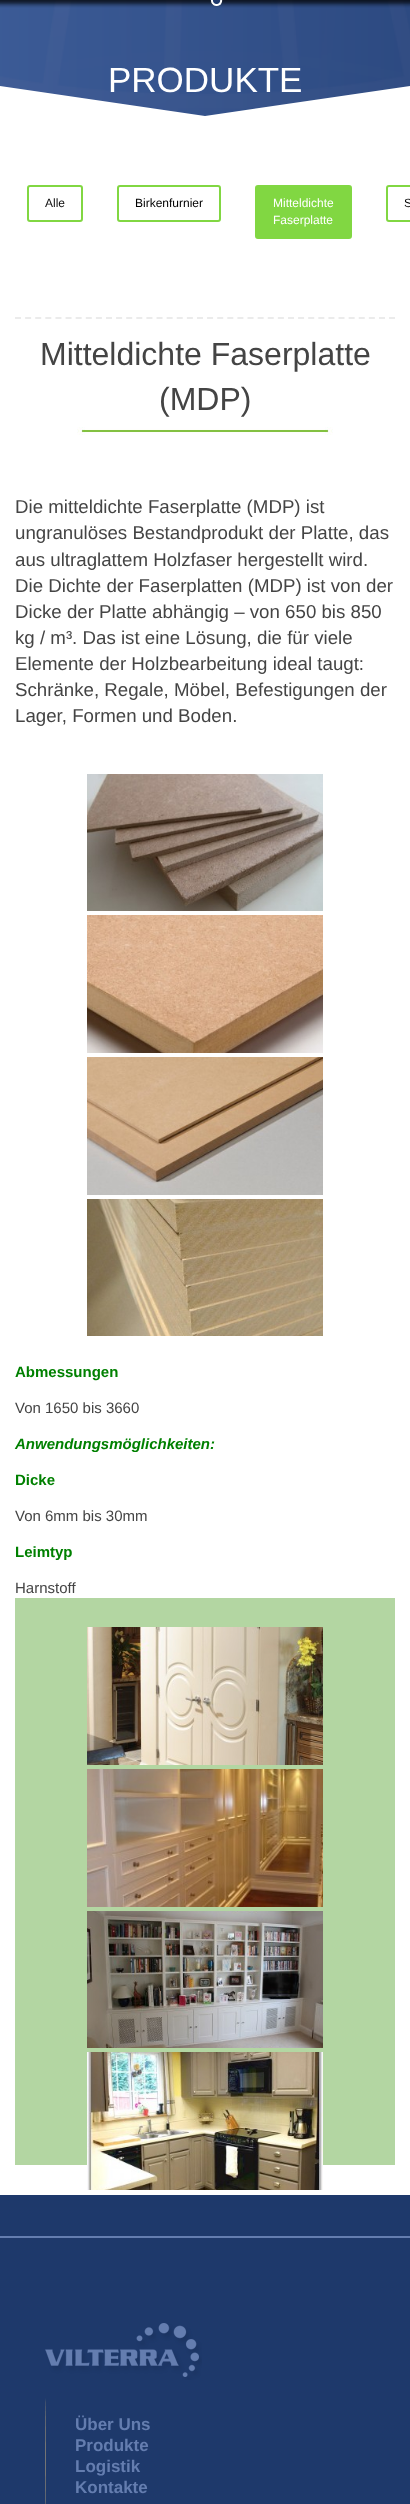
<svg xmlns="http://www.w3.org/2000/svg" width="410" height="2504">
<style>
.a{font:35px Liberation Sans;fill:#fff}
.b{font:12px Liberation Sans;fill:#0c0c0c}
.c{font:12px Liberation Sans;fill:#000}
.d{font:12px Liberation Sans;fill:#fff}
.e{font:32px Liberation Sans;fill:#444}
.f{font:18.7px Liberation Sans;fill:#444}
.g{font:bold 15px Liberation Sans;fill:#008000}
.h{font:15px Liberation Sans;fill:#444}
.i{font:italic bold 15px Liberation Sans;fill:#008000}
.j{font:bold 17px Liberation Sans;fill:#647daf}
</style>
<rect width="100%" height="100%" fill="#fff"/>
<image href="3.png" x="0" y="0" width="410" height="116"/>
<image href="1.png" x="0" y="0" width="410" height="8"/>
<image href="2.png" x="210" y="0" width="13" height="6"/>
<path fill="#fff" d="M0 86h410zm0 60h410v-30h-410zm410-60v30h-410v-30l205 30z"/>
<rect fill="none" stroke="#81d742" stroke-width="2" x="28" y="186" width="54" height="35" rx="2"/>
<rect fill="none" stroke="#81d742" stroke-width="2" x="118" y="186" width="102" height="35" rx="2"/>
<rect fill="#81d742" stroke="#81d742" stroke-width="2" x="256" y="186" width="95" height="52" rx="2"/>
<rect fill="none" stroke="#81d742" stroke-width="2" x="387" y="186" width="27" height="35" rx="2"/>
<path fill="none" stroke="#ebebeb" stroke-width="2" stroke-dasharray="6 4.11" d="M15 318h380"/>
<image href="4.png" x="77" y="427" width="256" height="8"/>
<image href="5.png" x="87" y="774" width="236" height="137"/>
<image href="6.png" x="87" y="915" width="236" height="138"/>
<image href="7.png" x="87" y="1057" width="236" height="138"/>
<image href="8.png" x="87" y="1199" width="236" height="137"/>
<path fill="#b3d6a2" d="M15 1598h380v567H15z"/>
<image href="9.png" x="87" y="1627" width="236" height="138"/>
<image href="10.png" x="87" y="1769" width="236" height="138"/>
<image href="11.png" x="87" y="1911" width="236" height="137"/>
<image href="12.png" x="87" y="2052" width="236" height="138"/>
<path fill="#1e396b" d="M0 2195h410v309H0z"/>
<path fill="#647daf" d="M0 2236h410v2H0z"/>
<image href="13.png" x="45" y="2323" width="157" height="57"/>
<image href="14.png" x="45" y="2398" width="1" height="106"/>
<text class="a" x="108" y="92">PRODUKTE</text>
<text class="b" x="45" y="207">Alle</text>
<text class="c" x="135" y="207">Birkenfurnier</text>
<text class="d" x="273" y="207">Mitteldichte</text>
<text class="d" x="273" y="224">Faserplatte</text>
<text class="c" x="404" y="207">S</text>
<text class="e" x="40" y="365">Mitteldichte Faserplatte</text>
<text class="e" x="159" y="410">(MDP)</text>
<text class="f" x="15" y="513">Die mitteldichte Faserplatte (MDP) ist</text>
<text class="f" x="15" y="539">ungranulöses Bestandprodukt der Platte, das</text>
<text class="f" x="15" y="566">aus ultraglattem Holzfaser hergestellt wird.</text>
<text class="f" x="15" y="592">Die Dichte der Faserplatten (MDP) ist von der</text>
<text class="f" x="15" y="618">Dicke der Platte abhängig – von 650 bis 850</text>
<text class="f" x="15" y="644">kg / m³. Das ist eine Lösung, die für viele</text>
<text class="f" x="15" y="670">Elemente der Holzbearbeitung ideal taugt:</text>
<text class="f" x="15" y="696">Schränke, Regale, Möbel, Befestigungen der</text>
<text class="f" x="15" y="722">Lager, Formen und Boden.</text>
<text class="g" x="15" y="1377">Abmessungen</text>
<text class="h" x="15" y="1413">Von 1650 bis 3660</text>
<text class="i" x="15" y="1449">Anwendungsmöglichkeiten:</text>
<text class="g" x="15" y="1485">Dicke</text>
<text class="h" x="15" y="1521">Von 6mm bis 30mm</text>
<text class="g" x="15" y="1557">Leimtyp</text>
<text class="h" x="15" y="1593">Harnstoff</text>
<text class="j" x="75" y="2430">Über Uns</text>
<text class="j" x="75" y="2451">Produkte</text>
<text class="j" x="75" y="2472">Logistik</text>
<text class="j" x="75" y="2493">Kontakte</text>
</svg>
